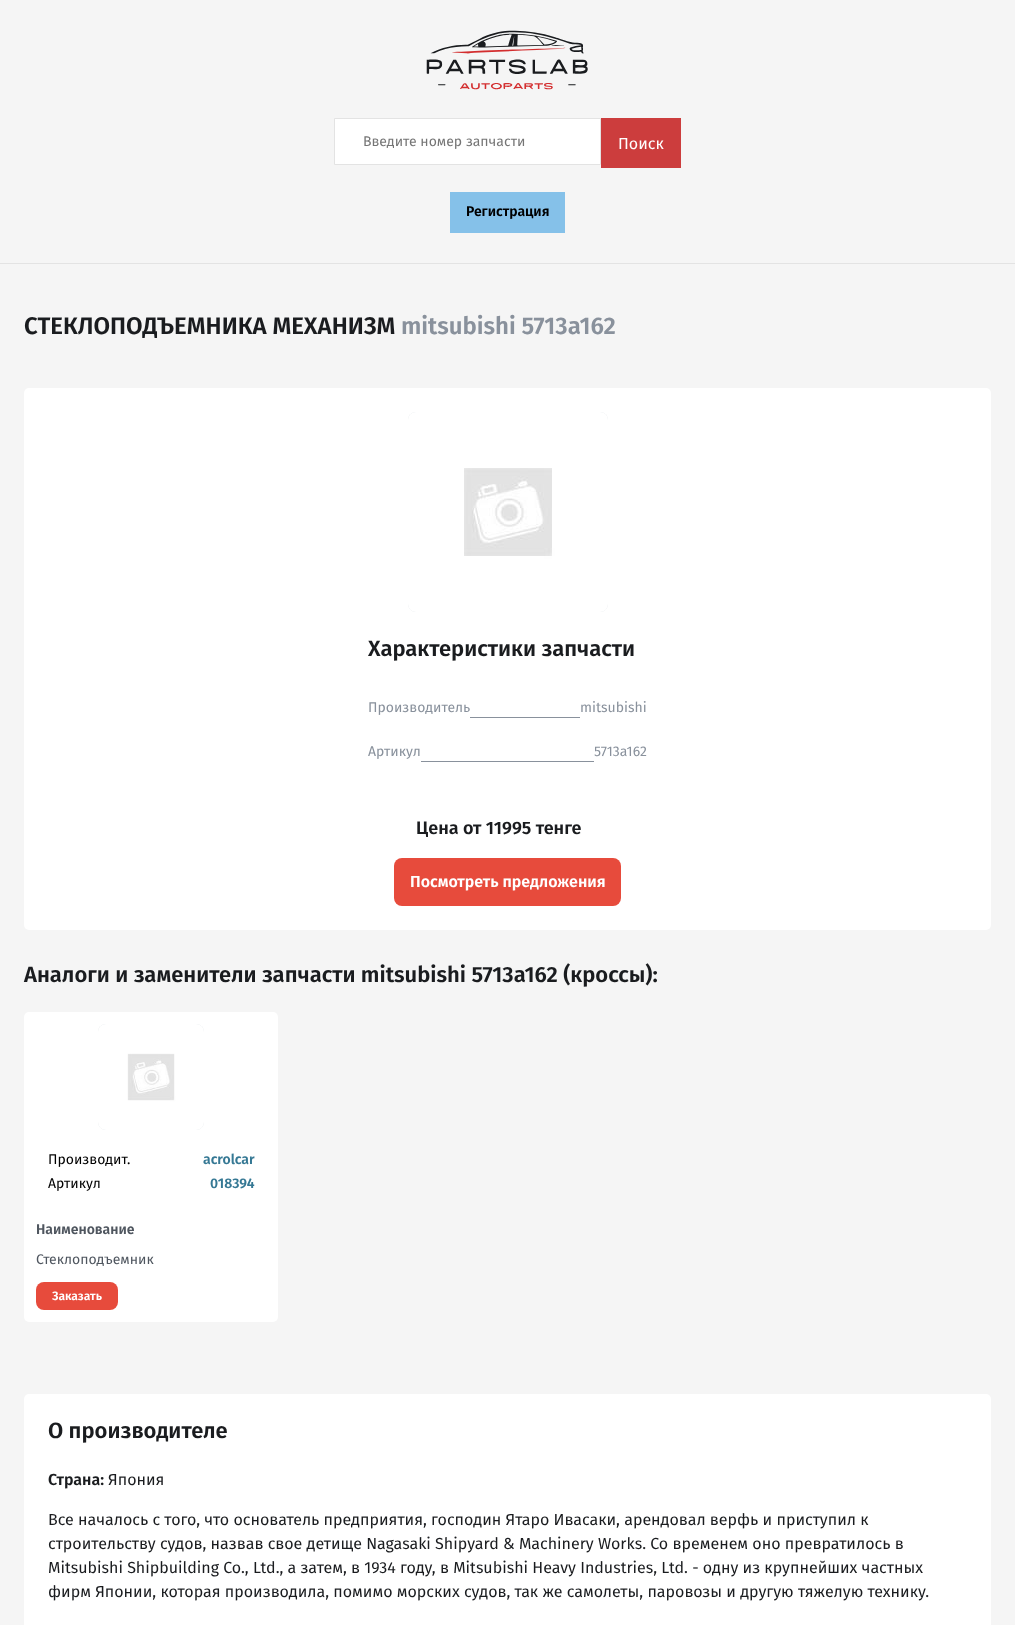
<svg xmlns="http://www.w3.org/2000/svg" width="1015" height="1625">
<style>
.a{font:14px Fira Sans;fill:#757575}
.b{font:16px Fira Sans;fill:#fff}
.c{font:600 14px Fira Sans;fill:#000}
.d{font:600 24px Fira Sans;fill:#1a1c1f}
.e{font:600 24px Fira Sans;fill:#89919c}
.f{font:600 22px Fira Sans;fill:#1a1c1f}
.g{font:14px Fira Sans;fill:#89919c}
.h{font:600 18px Fira Sans;fill:#1a1c1f}
.i{font:600 16px Fira Sans;fill:#fff}
.j{font:14px Fira Sans;fill:#000}
.k{font:600 14px Fira Sans;fill:#357894}
.l{font:600 14px Fira Sans;fill:#4f565f}
.m{font:14px Fira Sans;fill:#4f565f}
.n{font:600 12px Fira Sans;fill:#fff}
.o{font:600 16px Fira Sans;fill:#1a1c1f}
.p{font:16px Fira Sans;fill:#1a1c1f}
</style>
<rect width="100%" height="100%" fill="#f5f5f5"/>
<path fill="#e3e3e3" d="M0 263h1015v1H0z"/>
<image href="1.png" x="426" y="30" width="162" height="60"/>
<path fill="#fff" stroke="#e3e3e3" d="M334.5 118.5h266v46H334.5z"/>
<path fill="#cc3d3d" d="M601 118h80v50H601z"/>
<path fill="#85c1e9" d="M450 192h115v41H450z"/>
<rect fill="#fff" x="24" y="388" width="967" height="542" rx="5"/>
<rect fill="#e0e4e7" x="408" y="412" width="200" height="200" rx="8"/>
<image href="2.png" x="408" y="412" width="200" height="200"/>
<path fill="#89919c" d="M470 717h110v1H470z"/>
<path fill="#89919c" d="M421 761h173v1H421z"/>
<rect fill="#e74b3c" x="394" y="858" width="227" height="48" rx="8"/>
<rect fill="#fff" x="24" y="1012" width="254" height="310" rx="5"/>
<rect fill="#e0e4e7" x="98" y="1024" width="106" height="106" rx="8"/>
<image href="3.png" x="98" y="1024" width="106" height="106"/>
<rect fill="#e74b3c" x="36" y="1282" width="82" height="28" rx="8"/>
<rect fill="#fff" x="24" y="1394" width="967" height="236" rx="5"/>
<text class="a" x="363" y="146">Введите номер запчасти</text>
<text class="b" x="618" y="149">Поиск</text>
<text class="c" x="466" y="216">Регистрация</text>
<text class="d" x="24" y="334">СТЕКЛОПОДЪЕМНИКА МЕХАНИЗМ</text>
<text class="e" x="401" y="334">mitsubishi 5713a162</text>
<text class="f" x="368" y="656">Характеристики запчасти</text>
<text class="g" x="368" y="712">Производитель</text>
<text class="g" x="580" y="712">mitsubishi</text>
<text class="g" x="368" y="756">Артикул</text>
<text class="g" x="594" y="756">5713a162</text>
<text class="h" x="416" y="834">Цена от 11995 тенге</text>
<text class="i" x="410" y="887">Посмотреть предложения</text>
<text class="f" x="24" y="982">Аналоги и заменители запчасти mitsubishi 5713a162 (кроссы):</text>
<text class="j" x="48" y="1164">Производит.</text>
<text class="k" x="203" y="1164">acrolcar</text>
<text class="j" x="48" y="1188">Артикул</text>
<text class="k" x="210" y="1188">018394</text>
<text class="l" x="36" y="1234">Наименование</text>
<text class="m" x="36" y="1264">Стеклоподъемник</text>
<text class="n" x="52" y="1300">Заказать</text>
<text class="f" x="48" y="1438">О производителе</text>
<text class="o" x="48" y="1485">Страна:</text>
<text class="p" x="108" y="1485">Япония</text>
<text class="p" x="48" y="1525">Все началось с того, что основатель предприятия, господин Ятаро Ивасаки, арендовал верфь и приступил к</text>
<text class="p" x="48" y="1549">строительству судов, назвав свое детище Nagasaki Shipyard &amp; Machinery Works. Со временем оно превратилось в</text>
<text class="p" x="48" y="1573">Mitsubishi Shipbuilding Co., Ltd., а затем, в 1934 году, в Mitsubishi Heavy Industries, Ltd. - одну из крупнейших частных</text>
<text class="p" x="48" y="1597">фирм Японии, которая производила, помимо морских судов, так же самолеты, паровозы и другую тяжелую технику.</text>
</svg>
